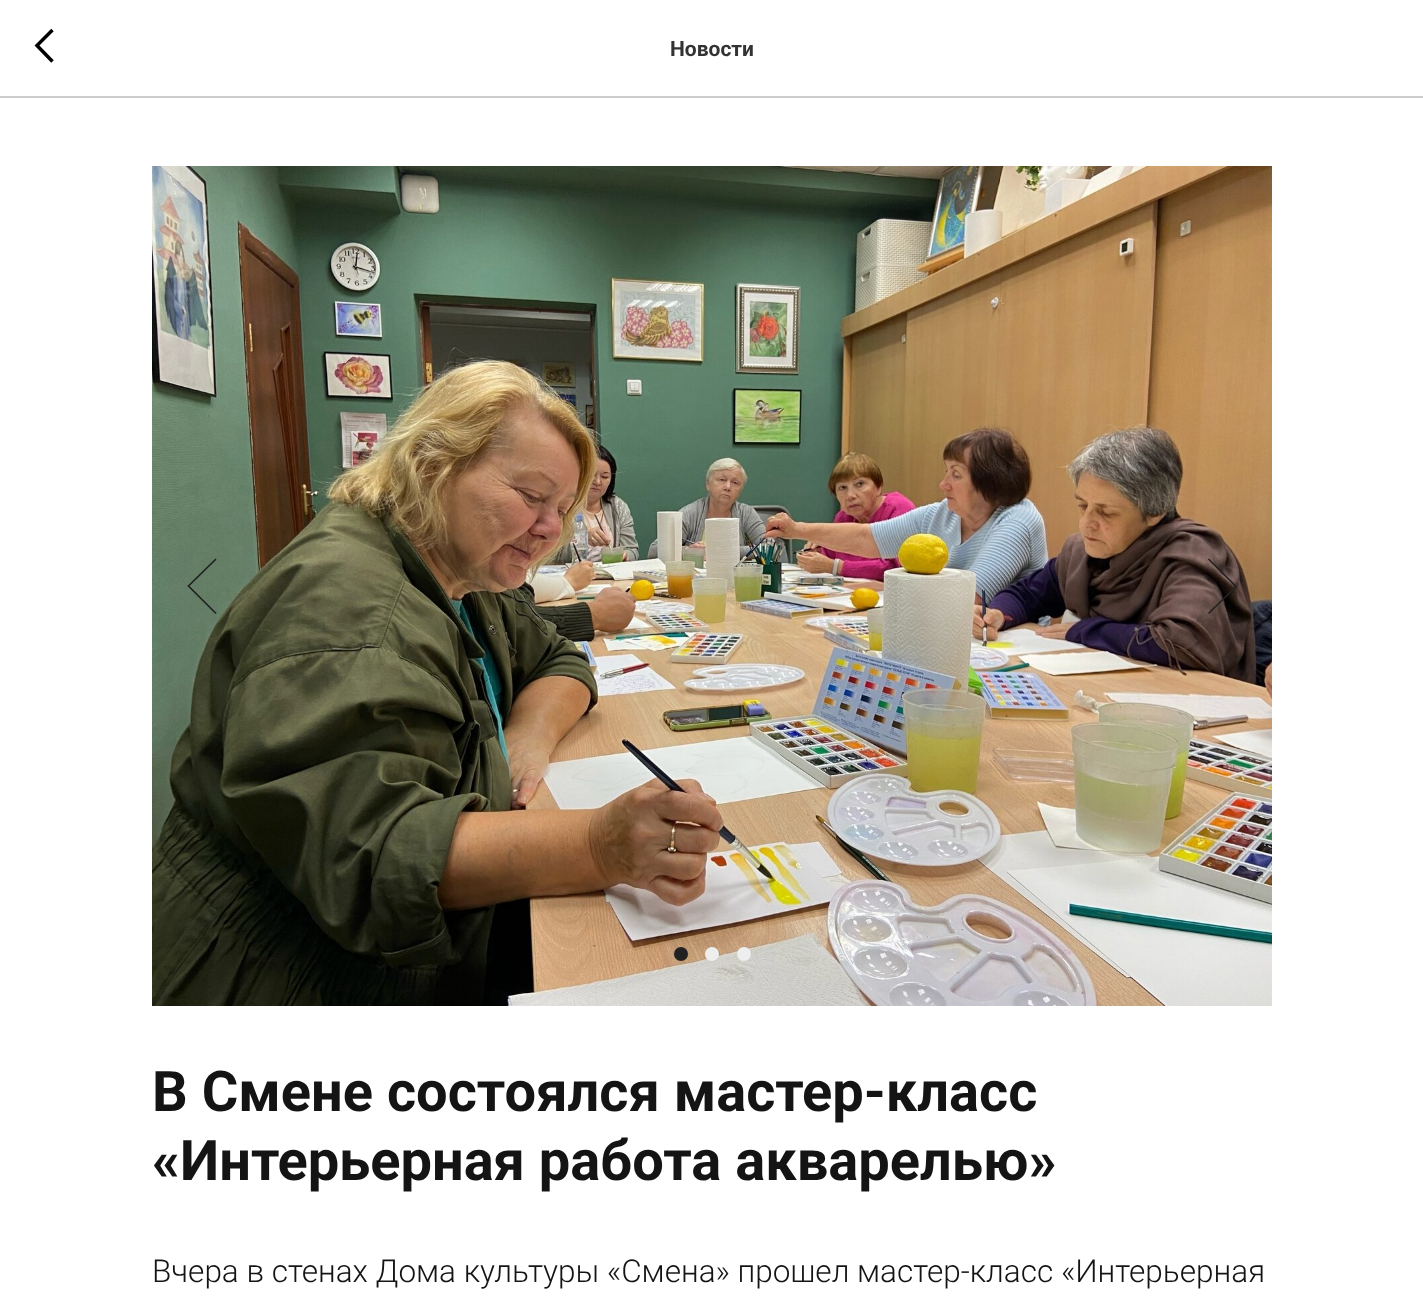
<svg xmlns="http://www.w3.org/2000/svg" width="1423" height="1314">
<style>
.a{font:bold 21px Roboto;fill:#333}
.b{font:bold 56px Roboto;fill:#141414}
.c{font:300 31.5px Roboto;fill:#141414}
</style>
<rect width="100%" height="100%" fill="#fff"/>
<path fill="#ccc" d="M0 96h1423v2H0z"/>
<path fill="none" stroke="#000" stroke-width="3.5" d="M52.5 61.5l-15.5-16l15.5-15.5"/>
<image href="1.png" x="152" y="166" width="1120" height="840"/>
<path fill="none" stroke="#222" stroke-width="1.7" d="M216 613.5l-27.5-27.5l27.5-27"/>
<path fill="none" stroke="#222" stroke-width="1.7" d="M1208.5 559l27.5 27.5l-27.5 27"/>
<circle fill="#222" cx="681" cy="954" r="7"/>
<circle fill="#eee" cx="712" cy="954" r="7"/>
<circle fill="#eee" cx="744" cy="954" r="7"/>
<text class="a" x="670" y="56">Новости</text>
<text class="b" x="152" y="1111">В Смене состоялся мастер-класс</text>
<text class="b" x="152" y="1180">«Интерьерная работа акварелью»</text>
<text class="c" x="152" y="1282">Вчера в стенах Дома культуры «Смена» прошел мастер-класс «Интерьерная</text>
</svg>
